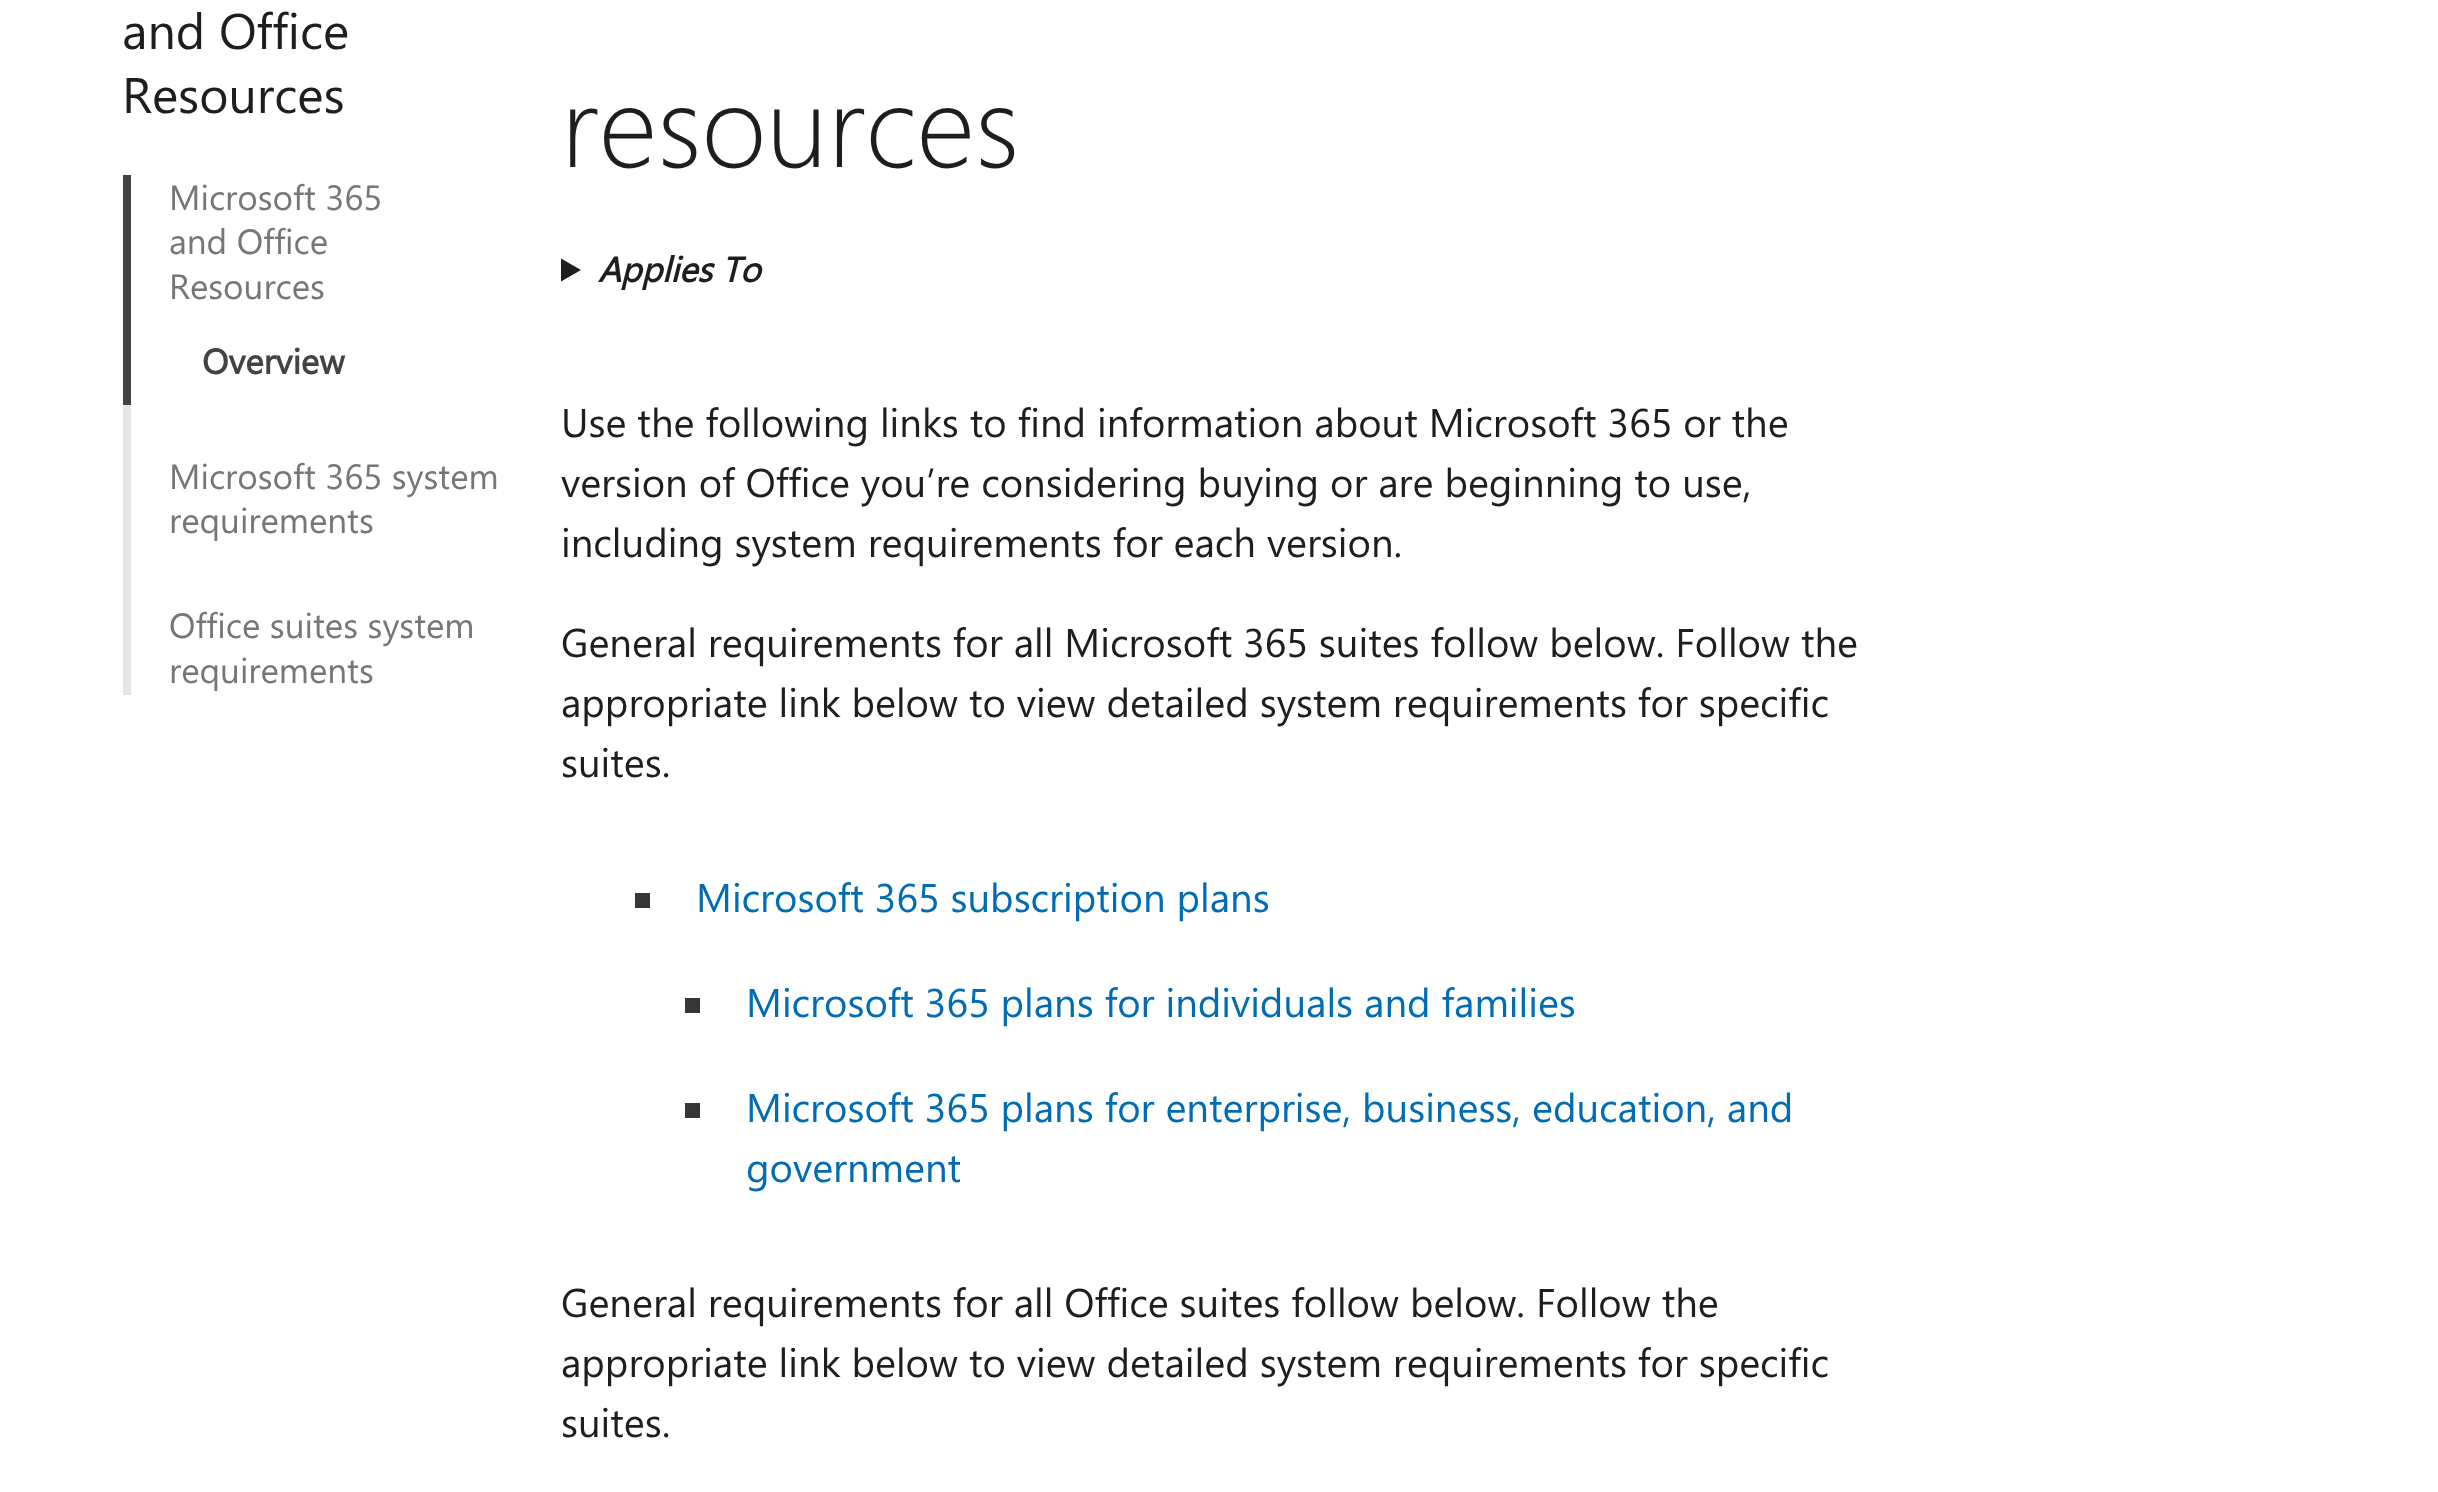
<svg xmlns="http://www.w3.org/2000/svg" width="2438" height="1492">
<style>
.a{font:50px Segoe UI;fill:#1e1e1e}
.b{font:35px Segoe UI;fill:#767676}
.c{font:bold 35px Segoe UI;fill:#434343}
.d{font:300 115px Segoe UI;fill:#1e1e1e}
.e{font:italic bold 35px Segoe UI;fill:#1e1e1e}
.f{font:40px Segoe UI;fill:#1e1e1e}
.g{font:40px Segoe UI;fill:#006cb4}
</style>
<rect width="100%" height="100%" fill="#fff"/>
<path fill="#434343" d="M123 175h8v230H123z"/>
<path fill="#e6e6e6" d="M123 405h8v290H123z"/>
<path fill="#1e1e1e" d="M561 258.5l20 11.5l-20 11.5z"/>
<path fill="#363636" d="M635 893h15v15H635z"/>
<path fill="#363636" d="M685 998h15v15H685z"/>
<path fill="#363636" d="M685 1103h15v15H685z"/>
<text class="a" x="122" y="49">and Office</text>
<text class="a" x="122" y="113">Resources</text>
<text class="b" x="169" y="210">Microsoft 365</text>
<text class="b" x="169" y="254">and Office</text>
<text class="b" x="169" y="299">Resources</text>
<text class="c" x="202" y="374">Overview</text>
<text class="b" x="169" y="489">Microsoft 365 system</text>
<text class="b" x="169" y="533">requirements</text>
<text class="b" x="169" y="638">Office suites system</text>
<text class="b" x="169" y="683">requirements</text>
<text class="d" x="561" y="167">resources</text>
<text class="e" x="598" y="282">Applies To</text>
<text class="f" x="561" y="437">Use the following links to find information about Microsoft 365 or the</text>
<text class="f" x="561" y="497">version of Office you’re considering buying or are beginning to use,</text>
<text class="f" x="561" y="557">including system requirements for each version.</text>
<text class="f" x="561" y="657">General requirements for all Microsoft 365 suites follow below. Follow the</text>
<text class="f" x="561" y="717">appropriate link below to view detailed system requirements for specific</text>
<text class="f" x="561" y="777">suites.</text>
<text class="g" x="696" y="912">Microsoft 365 subscription plans</text>
<text class="g" x="746" y="1017">Microsoft 365 plans for individuals and families</text>
<text class="g" x="746" y="1122">Microsoft 365 plans for enterprise, business, education, and</text>
<text class="g" x="746" y="1182">government</text>
<text class="f" x="561" y="1317">General requirements for all Office suites follow below. Follow the</text>
<text class="f" x="561" y="1377">appropriate link below to view detailed system requirements for specific</text>
<text class="f" x="561" y="1437">suites.</text>
</svg>
